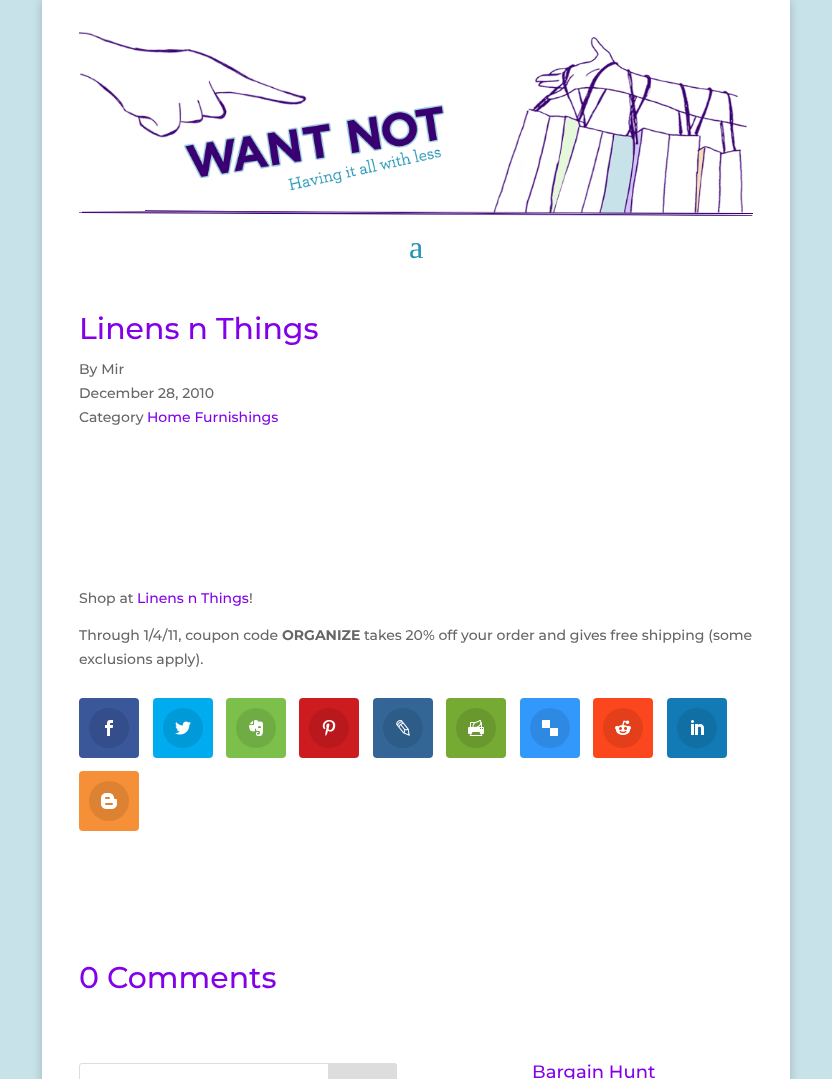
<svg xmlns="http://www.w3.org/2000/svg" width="832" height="1079">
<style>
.a{font:32px Liberation Serif;fill:#2495b5}
.b{font:100 30px Montserrat;fill:#8300e9}
.c{font:100 14px Montserrat;fill:#666}
.d{font:100 14px Montserrat;fill:#8300e9}
.e{font:100 14px 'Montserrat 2';fill:#666}
.f{font:100 18px Montserrat;fill:#8300e9}
</style>
<rect width="100%" height="100%" fill="#c8e2ea"/>
<path fill="#00000033" filter="blur(5px)" d="M42 0h748v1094H42z"/>
<path fill="#fff" d="M42 0h748v272H42z"/>
<image href="1.png" x="79" y="32" width="674" height="184"/>
<path fill="#fff" d="M42 272h748v807H42z"/>
<rect fill="#3a579a" x="79" y="698" width="60" height="60" rx="4"/>
<circle fill="#344e8b" cx="109" cy="728" r="20"/>
<image href="2.png" x="105" y="720" width="8" height="16"/>
<rect fill="#00abf0" x="153" y="698" width="60" height="60" rx="4"/>
<circle fill="#009ad8" cx="183" cy="728" r="20"/>
<image href="3.png" x="175" y="721" width="16" height="14"/>
<rect fill="#7cbf4b" x="226" y="698" width="60" height="60" rx="4"/>
<circle fill="#70ac44" cx="256" cy="728" r="20"/>
<image href="4.png" x="249" y="720" width="14" height="16"/>
<rect fill="#cd1c1f" x="299" y="698" width="60" height="60" rx="4"/>
<circle fill="#b9191c" cx="329" cy="728" r="20"/>
<image href="5.png" x="322" y="720" width="14" height="16"/>
<rect fill="#336697" x="373" y="698" width="60" height="60" rx="4"/>
<circle fill="#2e5c88" cx="403" cy="728" r="20"/>
<image href="6.png" x="396" y="720" width="14" height="16"/>
<rect fill="#75aa33" x="446" y="698" width="60" height="60" rx="4"/>
<circle fill="#69992e" cx="476" cy="728" r="20"/>
<image href="7.png" x="468" y="720" width="16" height="16"/>
<rect fill="#3398fc" x="520" y="698" width="60" height="60" rx="4"/>
<circle fill="#2e89e3" cx="550" cy="728" r="20"/>
<image href="8.png" x="542" y="720" width="16" height="16"/>
<rect fill="#fc461e" x="593" y="698" width="60" height="60" rx="4"/>
<circle fill="#e33f1b" cx="623" cy="728" r="20"/>
<image href="9.png" x="615" y="720" width="16" height="15"/>
<rect fill="#127bb6" x="667" y="698" width="60" height="60" rx="4"/>
<circle fill="#106fa4" cx="697" cy="728" r="20"/>
<image href="10.png" x="691" y="720" width="13" height="15"/>
<rect fill="#f59038" x="79" y="771" width="60" height="60" rx="4"/>
<circle fill="#dd8232" cx="109" cy="801" r="20"/>
<image href="11.png" x="101" y="793" width="16" height="16"/>
<rect fill="none" stroke="#ddd" x="79.5" y="1063.5" width="317" height="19" rx="2.5"/>
<path fill="#ddd" stroke="#ddd" d="M328.5 1063.5h65.5c1.5 0 2.5 1 2.5 2.5v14c0 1.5-1 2.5-2.5 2.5h-65.5z"/>
<text class="a" x="409" y="258">a</text>
<text class="b" x="79" y="339">Linens n Things</text>
<text class="c" x="79" y="374">By Mir</text>
<text class="c" x="79" y="398">December 28, 2010</text>
<text class="c" x="79" y="422">Category</text>
<text class="d" x="147" y="422">Home Furnishings</text>
<text class="c" x="79" y="603">Shop at</text>
<text class="d" x="137" y="603">Linens n Things</text>
<text class="c" x="249" y="603">!</text>
<text class="c" x="79" y="640">Through 1/4/11, coupon code</text>
<text class="e" x="282" y="640">ORGANIZE</text>
<text class="c" x="364" y="640">takes 20% off your order and gives free shipping (some</text>
<text class="c" x="79" y="664">exclusions apply).</text>
<text class="b" x="79" y="988">0 Comments</text>
<text class="f" x="532" y="1078">Bargain Hunt</text>
</svg>
